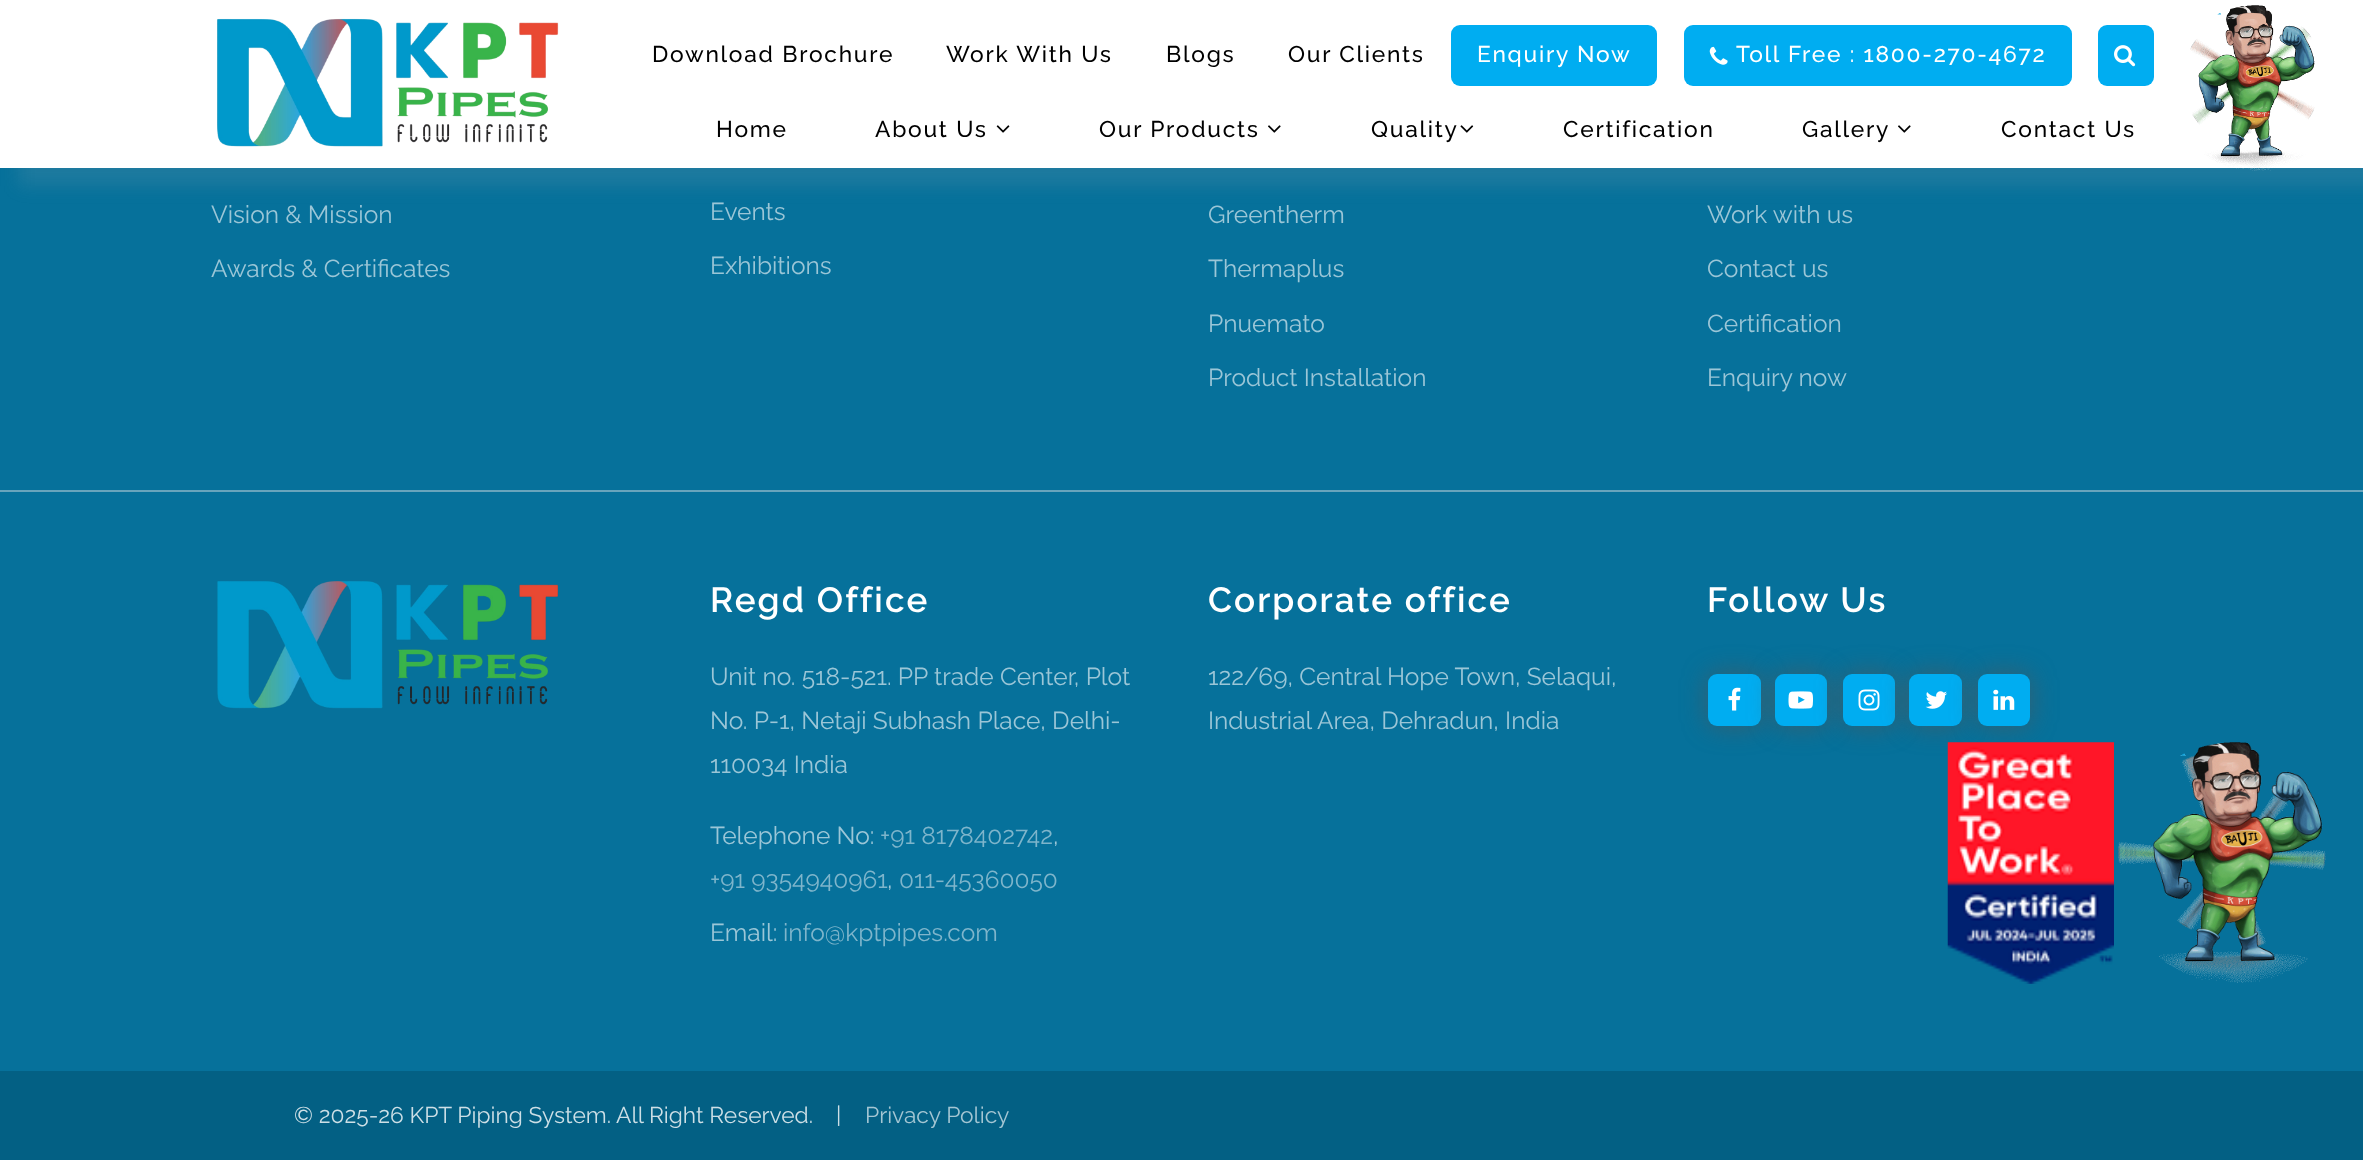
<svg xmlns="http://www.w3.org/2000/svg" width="2363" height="1160">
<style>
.a{font:500 22.75px Raleway;letter-spacing:1.75px;fill:#000}
.b{font:500 22.75px Raleway;letter-spacing:1.75px;fill:#fff}
.c{font:24.5px Raleway;fill:#9bc6d7}
.d{font:600 35px Raleway;letter-spacing:2.1px;fill:#fff}
.e{font:24.5px Raleway;fill:#7eb5cb}
.f{font:22.75px Raleway;fill:#cddfe6}
.g{font:22.75px Raleway;fill:#a4c6d3}
</style>
<rect width="100%" height="100%" fill="#06719b"/>
<path fill="#b7b7b721" filter="blur(9px)" d="M18 18h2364v168H18z"/>
<path fill="#fff" d="M0 0h2363v168H0z"/>
<image href="1.png" x="217" y="18" width="342" height="129"/>
<rect fill="#00adf1" x="1451" y="25" width="206" height="61" rx="9"/>
<rect fill="#00adf1" x="1684" y="25" width="388" height="61" rx="9"/>
<image href="2.png" x="1709" y="46" width="19" height="19"/>
<rect fill="#00adf1" x="2098" y="25" width="56" height="61" rx="9"/>
<image href="3.png" x="2114" y="45" width="22" height="22"/>
<image href="4.png" x="2190" y="5" width="125" height="166"/>
<image href="5.png" x="996" y="125" width="14" height="8"/>
<image href="6.png" x="1268" y="125" width="13" height="8"/>
<image href="7.png" x="1460" y="125" width="14" height="8"/>
<image href="6.png" x="1898" y="125" width="13" height="8"/>
<path fill="#68a4bc" d="M0 490h2363v2H0z"/>
<image href="8.png" x="217" y="581" width="342" height="128"/>
<rect fill="#555555a3" filter="blur(13px)" x="1708" y="674" width="53" height="52" rx="9"/>
<rect fill="#00adf1" x="1708" y="674" width="53" height="52" rx="9"/>
<image href="9.png" x="1728" y="687" width="13" height="24"/>
<rect fill="#555555a3" filter="blur(13px)" x="1775" y="674" width="52" height="52" rx="9"/>
<rect fill="#00adf1" x="1775" y="674" width="52" height="52" rx="9"/>
<image href="10.png" x="1788" y="691" width="25" height="18"/>
<rect fill="#555555a3" filter="blur(13px)" x="1843" y="674" width="52" height="52" rx="9"/>
<rect fill="#00adf1" x="1843" y="674" width="52" height="52" rx="9"/>
<image href="11.png" x="1858" y="689" width="22" height="22"/>
<rect fill="#555555a3" filter="blur(13px)" x="1909" y="674" width="53" height="52" rx="9"/>
<rect fill="#00adf1" x="1909" y="674" width="53" height="52" rx="9"/>
<image href="12.png" x="1925" y="691" width="22" height="18"/>
<rect fill="#555555a3" filter="blur(13px)" x="1978" y="674" width="52" height="52" rx="9"/>
<rect fill="#00adf1" x="1978" y="674" width="52" height="52" rx="9"/>
<image href="13.png" x="1993" y="689" width="22" height="21"/>
<image href="14.png" x="1947" y="742" width="167" height="242"/>
<image href="15.png" x="2118" y="742" width="208" height="241"/>
<path fill="#036084" d="M0 1071h2363v89H0z"/>
<text class="a" x="652" y="62">Download Brochure</text>
<text class="a" x="946" y="62">Work With Us</text>
<text class="a" x="1166" y="62">Blogs</text>
<text class="a" x="1288" y="62">Our Clients</text>
<text class="b" x="1477" y="62">Enquiry Now</text>
<text class="b" x="1736" y="62">Toll Free : 1800-270-4672</text>
<text class="a" x="716" y="137">Home</text>
<text class="a" x="875" y="137">About Us</text>
<text class="a" x="1099" y="137">Our Products</text>
<text class="a" x="1371" y="137">Quality</text>
<text class="a" x="1563" y="137">Certification</text>
<text class="a" x="1802" y="137">Gallery</text>
<text class="a" x="2001" y="137">Contact Us</text>
<text class="c" x="211" y="223">Vision &amp; Mission</text>
<text class="c" x="211" y="277">Awards &amp; Certificates</text>
<text class="c" x="710" y="220">Events</text>
<text class="c" x="710" y="274">Exhibitions</text>
<text class="c" x="1208" y="223">Greentherm</text>
<text class="c" x="1208" y="277">Thermaplus</text>
<text class="c" x="1208" y="332">Pnuemato</text>
<text class="c" x="1208" y="386">Product Installation</text>
<text class="c" x="1707" y="223">Work with us</text>
<text class="c" x="1707" y="277">Contact us</text>
<text class="c" x="1707" y="332">Certification</text>
<text class="c" x="1707" y="386">Enquiry now</text>
<text class="d" x="710" y="612">Regd Office</text>
<text class="c" x="710" y="685">Unit no. 518-521. PP trade Center, Plot</text>
<text class="c" x="710" y="729">No. P-1, Netaji Subhash Place, Delhi-</text>
<text class="c" x="710" y="773">110034 India</text>
<text class="c" x="710" y="844">Telephone No:</text>
<text class="e" x="880" y="844">+91 8178402742</text>
<text class="c" x="1053" y="844">,</text>
<text class="e" x="710" y="888">+91 9354940961</text>
<text class="c" x="887" y="888">,</text>
<text class="e" x="899" y="888">011-45360050</text>
<text class="c" x="710" y="941">Email:</text>
<text class="e" x="783" y="941">info@kptpipes.com</text>
<text class="d" x="1208" y="612">Corporate office</text>
<text class="c" x="1208" y="685">122/69, Central Hope Town, Selaqui,</text>
<text class="c" x="1208" y="729">Industrial Area, Dehradun, India</text>
<text class="d" x="1707" y="612">Follow Us</text>
<text class="f" x="294" y="1123">© 2025-26 KPT Piping System. All Right Reserved.</text>
<text class="f" x="836" y="1123">|</text>
<text class="g" x="865" y="1123">Privacy Policy</text>
</svg>
